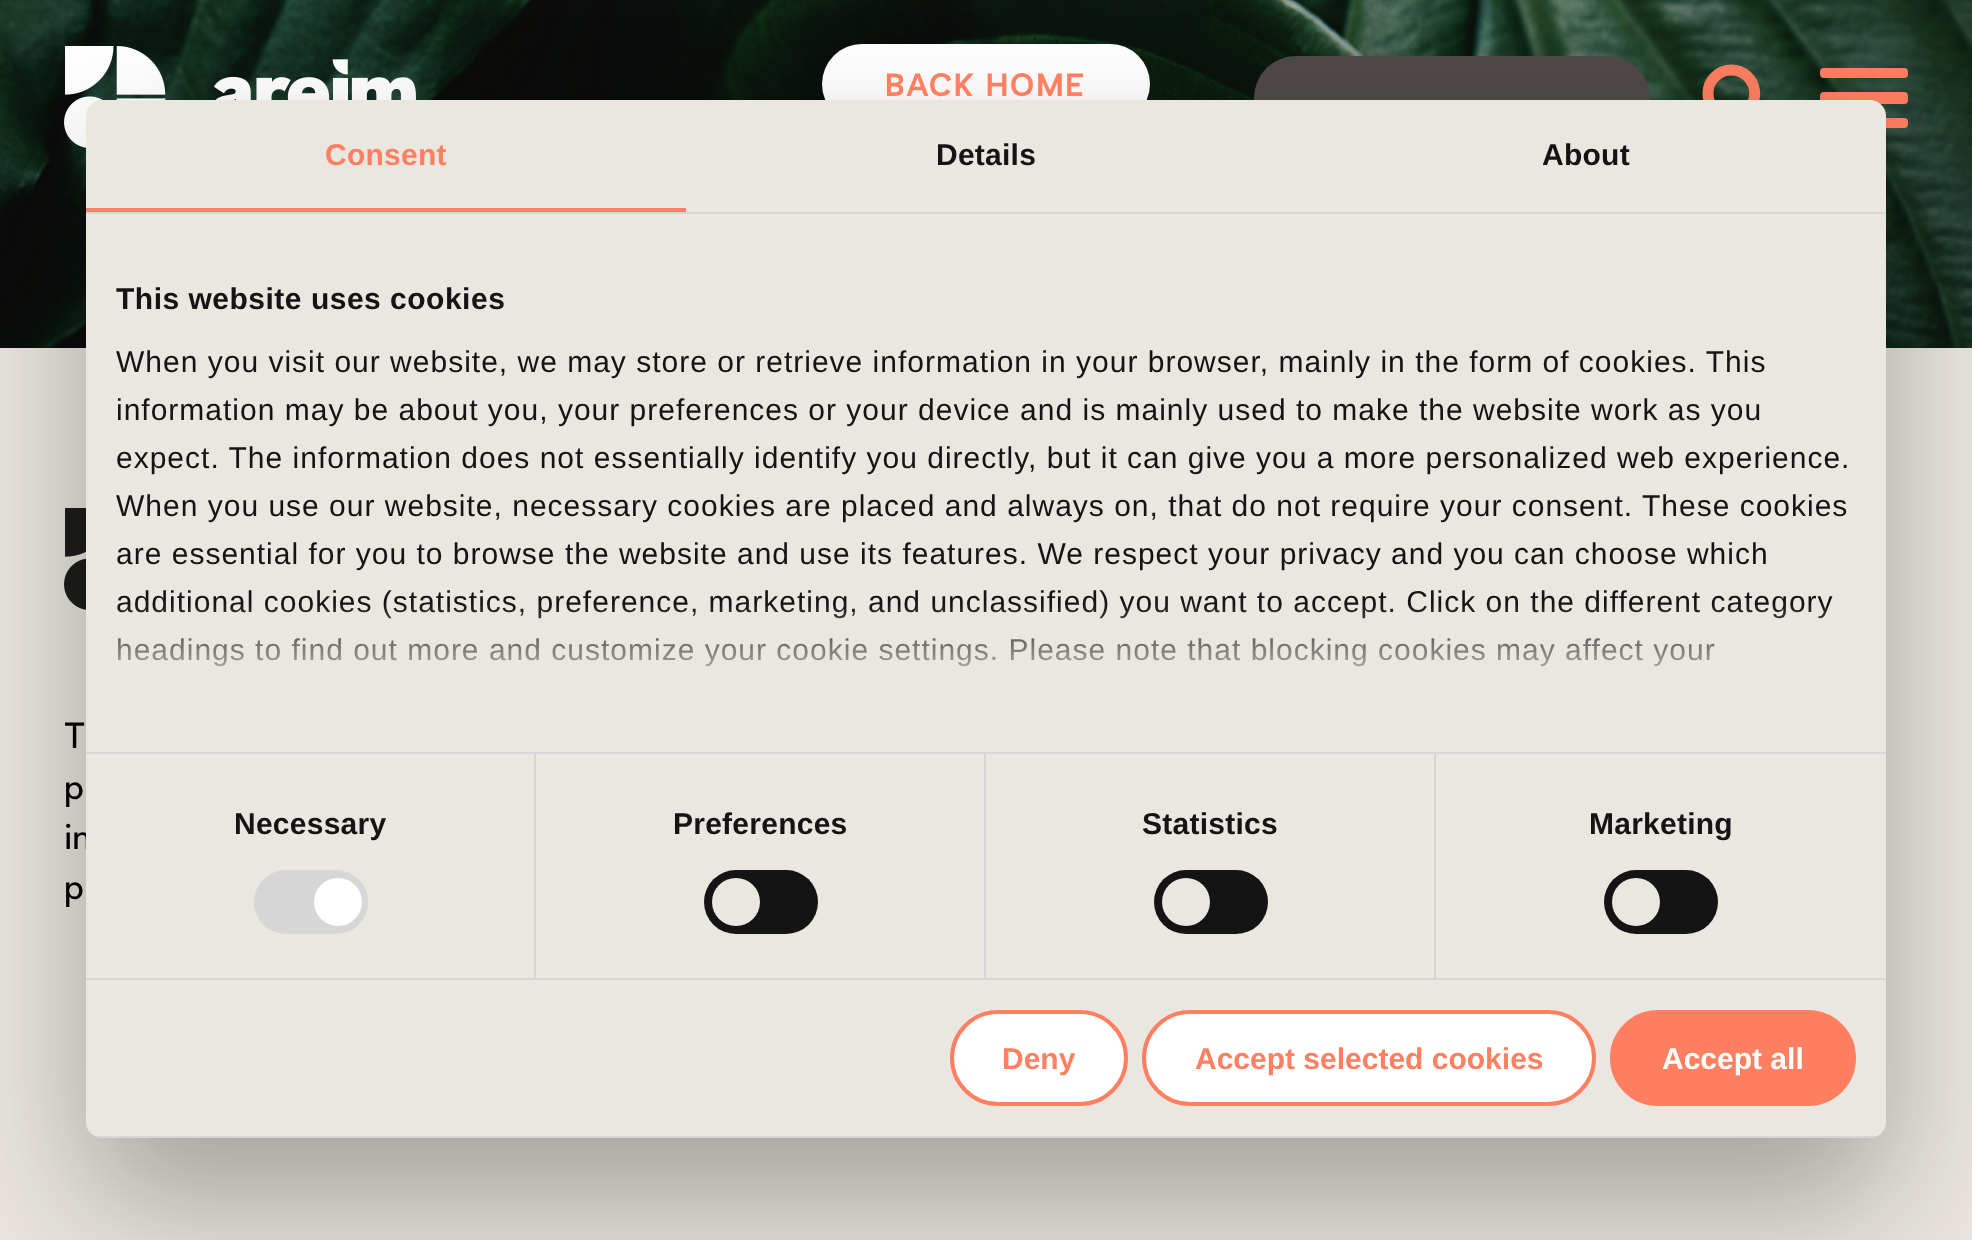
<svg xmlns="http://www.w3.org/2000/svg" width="1972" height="1240">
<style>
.a{font:bold 32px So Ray;letter-spacing:2.25px;fill:#ff7f61}
.b{font:36px So Ray;fill:#000}
.c{font:bold 30px Liberation Sans;letter-spacing:0.25px;fill:#ff7f61}
.d{font:bold 30px Liberation Sans;letter-spacing:0.25px;fill:#141414}
.e{font:bold 30px Liberation Sans;letter-spacing:0.5px;fill:#141414}
.f{font:30px Liberation Sans;letter-spacing:1px;fill:#141414}
.g{font:bold 30px Liberation Sans;fill:#ff7f61}
.h{font:bold 30px Liberation Sans;fill:#fff}
</style>
<defs>
<linearGradient id="g1" gradientUnits="userSpaceOnUse" x1="973" y1="753" x2="973" y2="603"><stop offset="0" stop-color="#eae6e0"/><stop offset="0.5" stop-color="#eae6e0" stop-opacity="0.8"/><stop offset="1" stop-color="#eae6e0" stop-opacity="0"/></linearGradient>
<clipPath id="clip1"><rect x="86" y="100" width="1800" height="1038" rx="16"/></clipPath>
</defs>
<rect width="100%" height="100%" fill="#eae6df"/>
<image href="3.png" x="0" y="0" width="1972" height="348"/>
<image href="1.png" x="64" y="46" width="352" height="102"/>
<rect fill="#4f4a47" x="1254" y="56" width="396" height="84" rx="42"/>
<image href="2.png" x="1702" y="64" width="59" height="36"/>
<rect fill="#ff7f61" x="1820" y="68" width="88" height="10" rx="4"/>
<rect fill="#ff7f61" x="1820" y="92" width="88" height="12" rx="4"/>
<rect fill="#ff7f61" x="1820" y="118" width="88" height="10" rx="4"/>
<rect fill="#fff" x="822" y="44" width="328" height="80" rx="40"/>
<image href="4.png" x="64" y="508" width="22" height="102"/>
<rect fill="#0000004d" filter="blur(68px)" x="86" y="164" width="1800" height="1038" rx="16"/>
<text class="a" x="885" y="96">BACK HOME</text>
<text class="b" x="64" y="748">T</text>
<text class="b" x="64" y="799">p</text>
<text class="b" x="64" y="849">in</text>
<text class="b" x="64" y="899">p</text>
<rect fill="#eae6e0" x="86" y="100" width="1800" height="1038" rx="16"/>
<path fill="#d6d6d6" d="M86 212h1800v2H86z"/>
<path fill="#ff7f60" d="M86 208h600v4H86z"/>
<text class="c" x="325" y="165">Consent</text>
<text class="d" x="936" y="165">Details</text>
<text class="d" x="1542" y="165">About</text>
<path fill="#d6d6d6" d="M86 752h1800v2H86z"/>
<text class="e" x="116" y="309">This website uses cookies</text>
<text class="f" x="116" y="372">When you visit our website, we may store or retrieve information in your browser, mainly in the form of cookies. This</text>
<text class="f" x="116" y="420">information may be about you, your preferences or your device and is mainly used to make the website work as you</text>
<text class="f" x="116" y="468">expect. The information does not essentially identify you directly, but it can give you a more personalized web experience.</text>
<text class="f" x="116" y="516">When you use our website, necessary cookies are placed and always on, that do not require your consent. These cookies</text>
<text class="f" x="116" y="564">are essential for you to browse the website and use its features. We respect your privacy and you can choose which</text>
<text class="f" x="116" y="612">additional cookies (statistics, preference, marketing, and unclassified) you want to accept. Click on the different category</text>
<text class="f" x="116" y="660">headings to find out more and customize your cookie settings. Please note that blocking cookies may affect your</text>
<path fill="url(#g1)" d="M117 605h1712v62H117z"/>
<path fill="#d6d6d6" d="M86 978h1800v2H86z"/>
<path fill="#d6d6d6" d="M534 754h2v224H534z"/>
<text class="d" x="234" y="834">Necessary</text>
<rect fill="#d6d6d6" x="254" y="870" width="114" height="64" rx="32"/>
<circle fill="#fff" cx="338" cy="902" r="24"/>
<path fill="#d6d6d6" d="M984 754h2v224H984z"/>
<text class="d" x="673" y="834">Preferences</text>
<rect fill="#141414" x="704" y="870" width="114" height="64" rx="32"/>
<circle fill="#eae6e0" cx="736" cy="902" r="24"/>
<path fill="#d6d6d6" d="M1434 754h2v224H1434z"/>
<text class="d" x="1142" y="834">Statistics</text>
<rect fill="#141414" x="1154" y="870" width="114" height="64" rx="32"/>
<circle fill="#eae6e0" cx="1186" cy="902" r="24"/>
<text class="d" x="1589" y="834">Marketing</text>
<rect fill="#141414" x="1604" y="870" width="114" height="64" rx="32"/>
<circle fill="#eae6e0" cx="1636" cy="902" r="24"/>
<g clip-path="url(#clip1)">
<path fill="#d6d6d6" d="M86 1136h1800v2H86z"/>
</g>
<rect fill="#fff" stroke="#ff7f60" stroke-width="4" x="952" y="1012" width="174" height="92" rx="46"/>
<text class="g" x="1002" y="1069">Deny</text>
<rect fill="#fff" stroke="#ff7f60" stroke-width="4" x="1144" y="1012" width="450" height="92" rx="46"/>
<text class="g" x="1195" y="1069">Accept selected cookies</text>
<rect fill="#ff7f60" stroke="#ff7f60" stroke-width="4" x="1612" y="1012" width="242" height="92" rx="46"/>
<text class="h" x="1662" y="1069">Accept all</text>
</svg>
